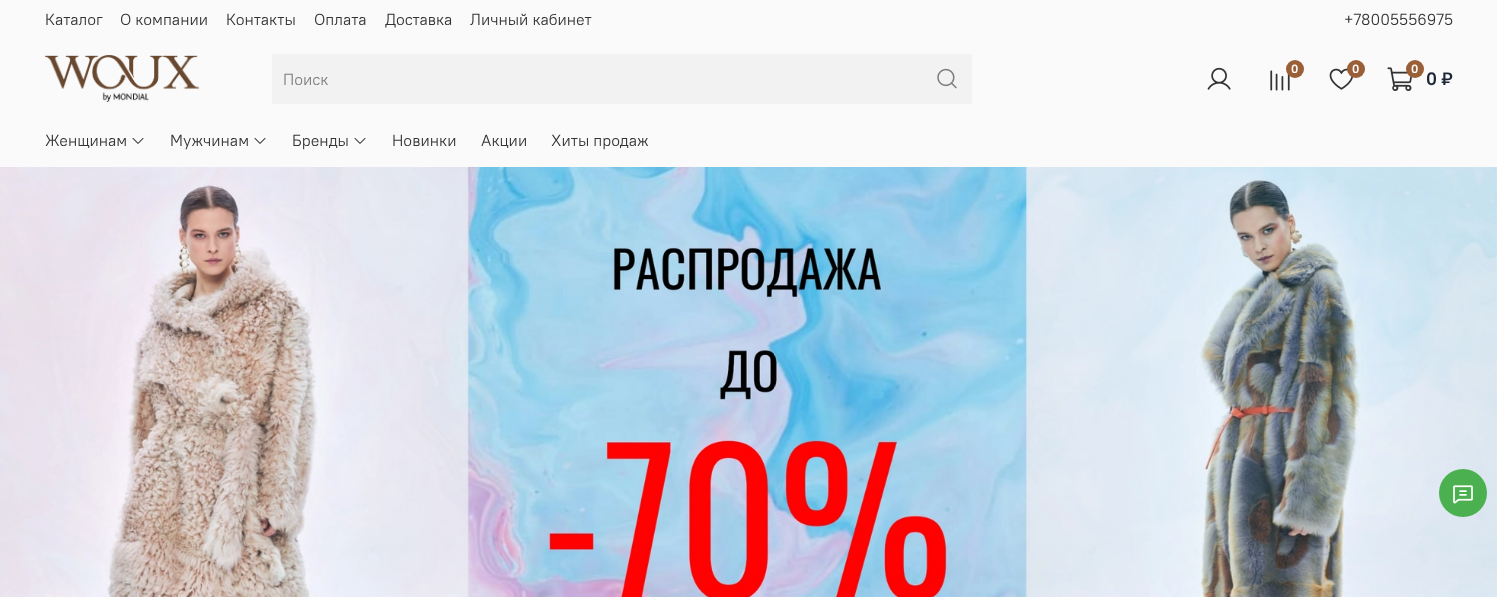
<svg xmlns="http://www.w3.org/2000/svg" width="1497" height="597">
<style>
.a{font:16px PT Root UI;fill:#333}
.b{font:16px PT Root UI;fill:#7d7d7d}
.c{font:bold 12px PT Root UI;fill:#fff}
.d{font:bold 18px PT Root UI;fill:#1b2738}
</style>
<rect width="100%" height="100%" fill="#fff"/>
<path fill="#fafafa" d="M0 0h1497v167H0z"/>
<image href="1.png" x="45" y="55" width="154" height="47"/>
<path fill="#f2f2f2" d="M272 54h700v50H272z"/>
<image href="2.png" x="937" y="68" width="20" height="21"/>
<image href="3.png" x="1207" y="67" width="24" height="23"/>
<image href="4.png" x="1270" y="70" width="20" height="21"/>
<circle fill="#9a5f36" cx="1295" cy="69" r="9"/>
<image href="5.png" x="1329" y="68" width="24" height="22"/>
<circle fill="#9a5f36" cx="1356" cy="69" r="9"/>
<image href="6.png" x="1387" y="67" width="25" height="24"/>
<circle fill="#9a5f36" cx="1415" cy="69" r="9"/>
<image href="7.png" x="132" y="138" width="12" height="6"/>
<image href="7.png" x="254" y="138" width="12" height="6"/>
<image href="7.png" x="354" y="138" width="12" height="6"/>
<image href="8.png" x="0" y="167" width="1497" height="430"/>
<circle fill="#4bb04f" cx="1463" cy="493" r="24"/>
<image href="9.png" x="1453" y="485" width="20" height="19"/>
<text class="a" x="45" y="25">Каталог</text>
<text class="a" x="120" y="25">О компании</text>
<text class="a" x="226" y="25">Контакты</text>
<text class="a" x="314" y="25">Оплата</text>
<text class="a" x="385" y="25">Доставка</text>
<text class="a" x="470" y="25">Личный кабинет</text>
<text class="a" x="1344" y="25">+78005556975</text>
<text class="b" x="283" y="85">Поиск</text>
<text class="c" x="1291" y="73">0</text>
<text class="c" x="1352" y="73">0</text>
<text class="c" x="1411" y="73">0</text>
<text class="d" x="1426" y="85">0 ₽</text>
<text class="a" x="45" y="146">Женщинам</text>
<text class="a" x="170" y="146">Мужчинам</text>
<text class="a" x="292" y="146">Бренды</text>
<text class="a" x="392" y="146">Новинки</text>
<text class="a" x="481" y="146">Акции</text>
<text class="a" x="551" y="146">Хиты продаж</text>
</svg>
